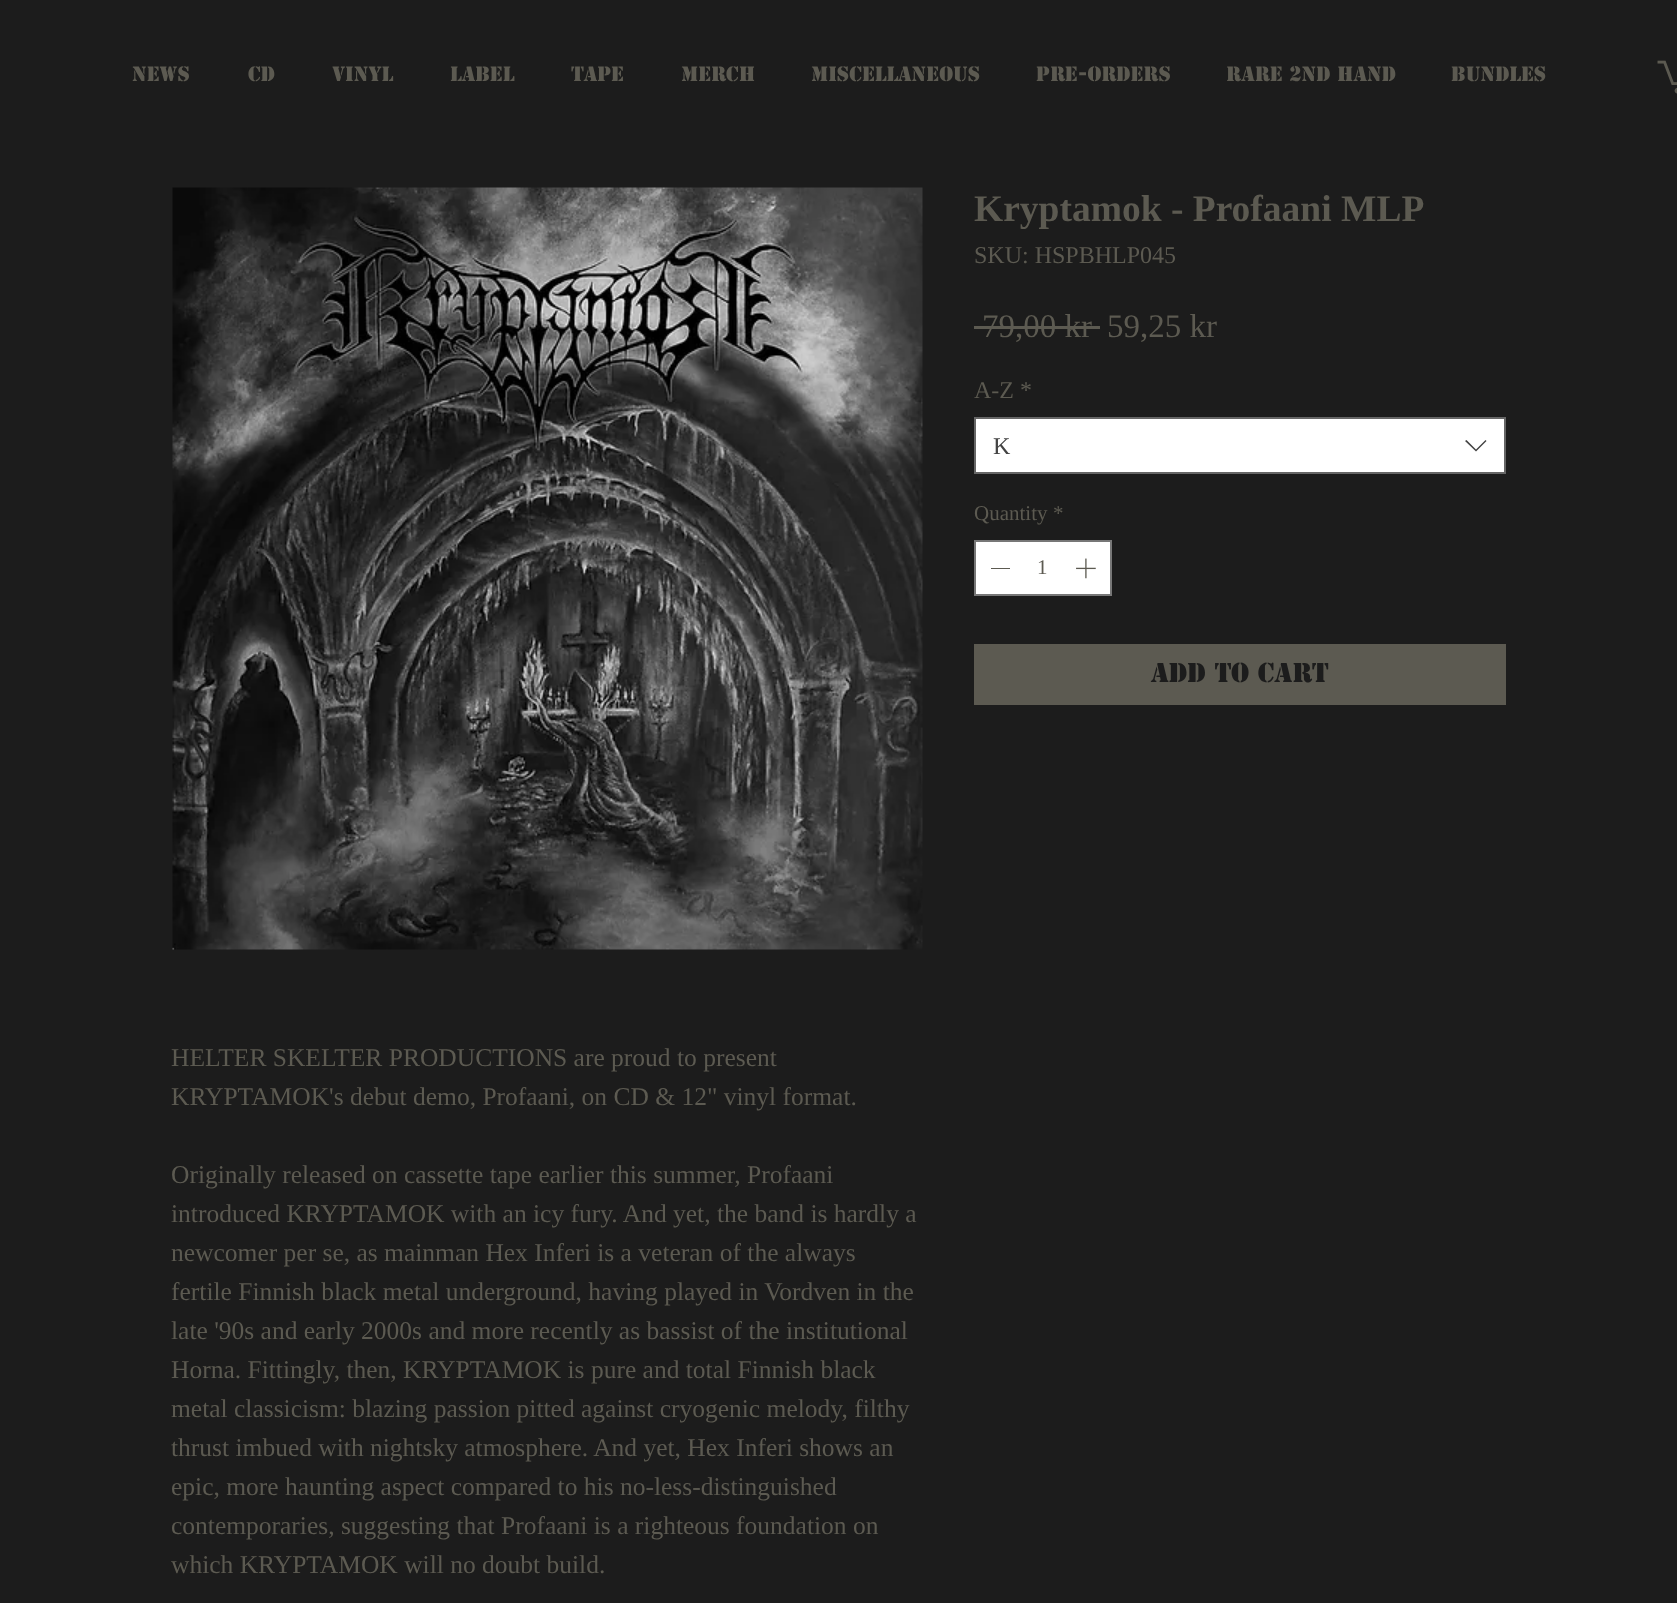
<svg xmlns="http://www.w3.org/2000/svg" width="1677" height="1603">
<style>
.a{font:bold 19.5px 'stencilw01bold';fill:#5c5a51}
.b{font:bold 37.5px Liberation Serif;fill:#5c5a51}
.c{font:24px Liberation Serif;fill:#5c5a51}
.d{font:33px Liberation Serif;fill:#5c5a51}
.e{font:24px Liberation Serif;fill:#444}
.f{font:21px Liberation Serif;fill:#5c5a51}
.g{font:bold 25.5px 'stencilw01bold';fill:#1c1c1c}
.h{font:25.5px Liberation Serif;fill:#5c5a51}
</style>
<rect width="100%" height="100%" fill="#1c1c1c"/>
<image href="1.png" x="1657" y="60" width="20" height="34"/>
<path fill="#5c5a51" d="M974 326h126v3H974z"/>
<path fill="#fff" stroke="#666" stroke-width="2" d="M975 418h530v55H975z"/>
<path fill="#444" fill-rule="evenodd" d="M1485.5 440l1 1l-10.5 10.5l-11-10.5l1.5-1l9.5 9.5z"/>
<path fill="#fff" stroke="#777" stroke-width="2" d="M975 541h136v54H975z"/>
<path fill="#5c5a51" d="M991 568h19v1H991z"/>
<image href="2.png" x="1076" y="558" width="20" height="21"/>
<path fill="#5c5a51" d="M974 644h532v61H974z"/>
<image href="3.png" x="172" y="187" width="751" height="763"/>
<text class="a" x="132" y="81">NEWS</text>
<text class="a" x="248" y="81">CD</text>
<text class="a" x="332" y="81">VINYL</text>
<text class="a" x="450" y="81">LABEL</text>
<text class="a" x="571" y="81">TAPE</text>
<text class="a" x="681" y="81">MERCH</text>
<text class="a" x="811" y="81">MISCELLANEOUS</text>
<text class="a" x="1036" y="81">PRE-ORDERS</text>
<text class="a" x="1226" y="81">RARE 2ND HAND</text>
<text class="a" x="1451" y="81">Bundles</text>
<text class="b" x="974" y="221">Kryptamok - Profaani MLP</text>
<text class="c" x="974" y="263">SKU: HSPBHLP045</text>
<text class="d" x="982" y="337">79,00 kr</text>
<text class="d" x="1107" y="337">59,25 kr</text>
<text class="c" x="974" y="398">A-Z *</text>
<text class="e" x="993" y="454">K</text>
<text class="f" x="974" y="520">Quantity</text>
<text class="f" x="1053" y="520">*</text>
<text class="f" x="1037" y="574">1</text>
<text class="g" x="1151" y="682">Add to Cart</text>
<text class="h" x="171" y="1066">HELTER SKELTER PRODUCTIONS are proud to present</text>
<text class="h" x="171" y="1105">KRYPTAMOK's debut demo, Profaani, on CD &amp; 12" vinyl format.</text>
<text class="h" x="171" y="1183">Originally released on cassette tape earlier this summer, Profaani</text>
<text class="h" x="171" y="1222">introduced KRYPTAMOK with an icy fury. And yet, the band is hardly a</text>
<text class="h" x="171" y="1261">newcomer per se, as mainman Hex Inferi is a veteran of the always</text>
<text class="h" x="171" y="1300">fertile Finnish black metal underground, having played in Vordven in the</text>
<text class="h" x="171" y="1339">late '90s and early 2000s and more recently as bassist of the institutional</text>
<text class="h" x="171" y="1378">Horna. Fittingly, then, KRYPTAMOK is pure and total Finnish black</text>
<text class="h" x="171" y="1417">metal classicism: blazing passion pitted against cryogenic melody, filthy</text>
<text class="h" x="171" y="1456">thrust imbued with nightsky atmosphere. And yet, Hex Inferi shows an</text>
<text class="h" x="171" y="1495">epic, more haunting aspect compared to his no-less-distinguished</text>
<text class="h" x="171" y="1534">contemporaries, suggesting that Profaani is a righteous foundation on</text>
<text class="h" x="171" y="1573">which KRYPTAMOK will no doubt build.</text>
</svg>
